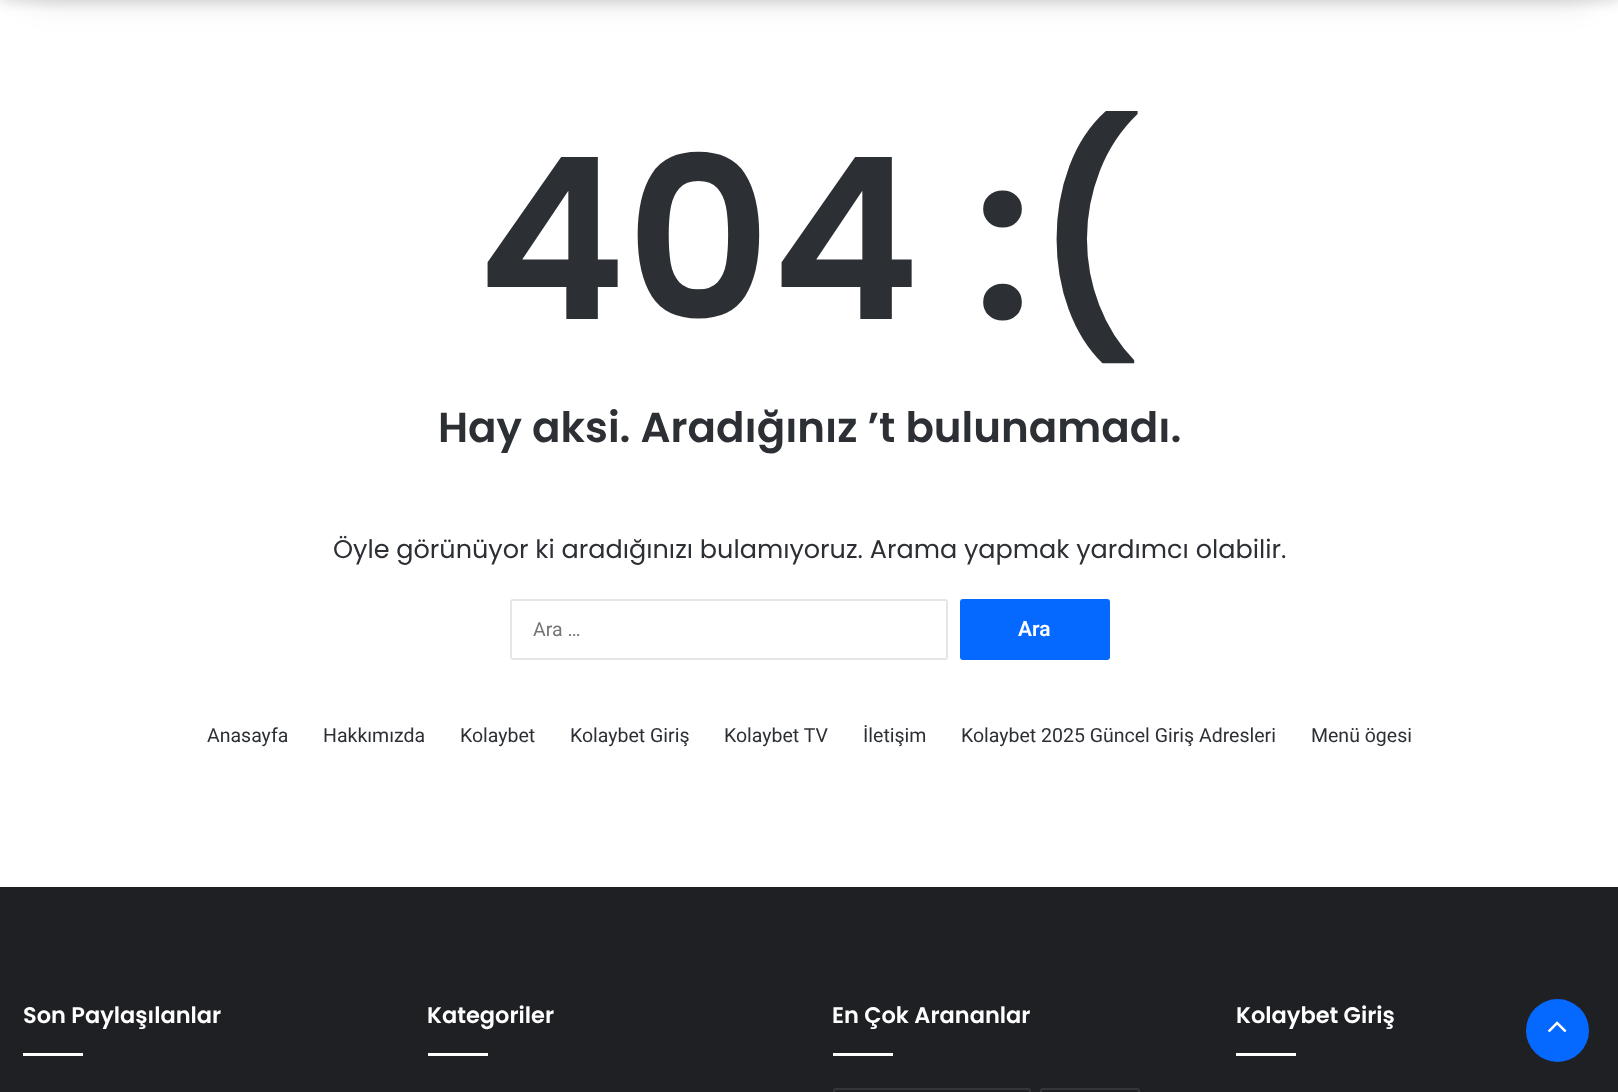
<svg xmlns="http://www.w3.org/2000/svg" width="1618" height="1092">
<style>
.a{font:600 225px Poppins;fill:#2c2f34}
.b{font:600 42px Poppins;fill:#2c2f34}
.c{font:25.5px Poppins;fill:#2c2f34}
.d{font:19.5px Roboto;fill:#757575}
.e{font:600 21px Roboto;fill:#fff}
.f{font:19.5px Roboto;fill:#2c2f34}
.g{font:600 22.5px Poppins;fill:#fff}
</style>
<rect width="100%" height="100%" fill="#fff"/>
<path fill="#0000001a" filter="blur(15px)" d="M30 -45h1559v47H30z"/>
<path fill="#63636333" filter="blur(6px)" d="M0 -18h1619v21H0z"/>
<rect fill="none" stroke="#e6e6e6" stroke-width="2" x="511" y="600" width="436" height="59" rx="2"/>
<rect fill="#0669ff" x="960" y="599" width="150" height="61" rx="3"/>
<path fill="#1f2024" d="M0 887h1618v205H0z"/>
<path fill="#fff" d="M23 1053h60v3H23z"/>
<path fill="#fff" d="M428 1053h60v3H428z"/>
<path fill="#fff" d="M833 1053h60v3H833z"/>
<rect fill="none" stroke="#35363a" stroke-width="2" x="834" y="1089" width="196" height="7" rx="2"/>
<rect fill="none" stroke="#35363a" stroke-width="2" x="1041" y="1089" width="98" height="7" rx="2"/>
<path fill="#fff" d="M1236 1053h60v3H1236z"/>
<circle fill="#0669ff" cx="1557.5" cy="1030.5" r="31.5"/>
<image href="1.png" x="1547" y="1021" width="20" height="12"/>
<text class="a" x="477" y="319">404 :(</text>
<text class="b" x="438" y="442">Hay aksi. Aradığınız ’t bulunamadı.</text>
<text class="c" x="333" y="558">Öyle görünüyor ki aradığınızı bulamıyoruz. Arama yapmak yardımcı olabilir.</text>
<text class="d" x="533" y="636">Ara …</text>
<text class="e" x="1018" y="636">Ara</text>
<text class="f" x="207" y="742">Anasayfa</text>
<text class="f" x="323" y="742">Hakkımızda</text>
<text class="f" x="460" y="742">Kolaybet</text>
<text class="f" x="570" y="742">Kolaybet Giriş</text>
<text class="f" x="724" y="742">Kolaybet TV</text>
<text class="f" x="863" y="742">İletişim</text>
<text class="f" x="961" y="742">Kolaybet 2025 Güncel Giriş Adresleri</text>
<text class="f" x="1311" y="742">Menü ögesi</text>
<text class="g" x="23" y="1023">Son Paylaşılanlar</text>
<text class="g" x="427" y="1023">Kategoriler</text>
<text class="g" x="832" y="1023">En Çok Arananlar</text>
<text class="g" x="1236" y="1023">Kolaybet Giriş</text>
</svg>
